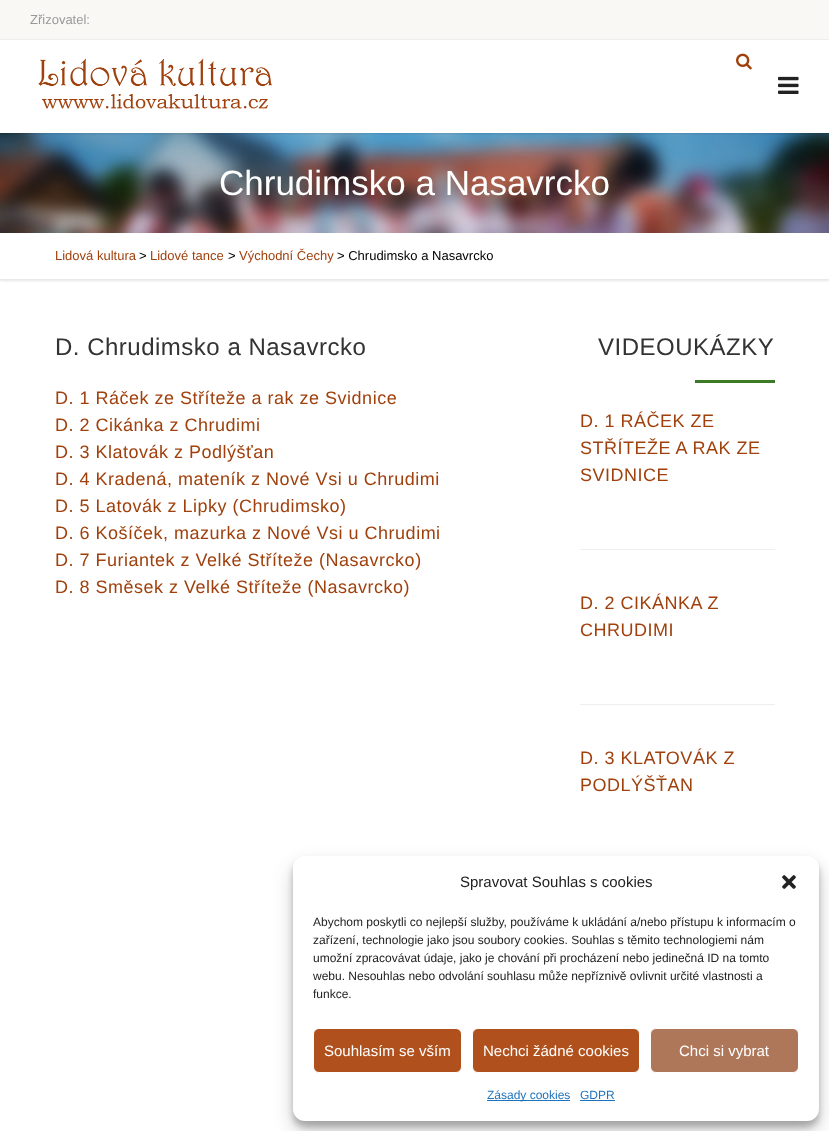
<svg xmlns="http://www.w3.org/2000/svg" width="829" height="1131">
<style>
.a{font:13px Liberation Sans;fill:#999}
.b{font:35px Liberation Sans;fill:#fff}
.c{font:13px Liberation Sans;fill:#a0410d}
.d{font:13px Liberation Sans;fill:#000}
.e{font:24px Liberation Sans;letter-spacing:0.5px;fill:#333}
.f{font:18px Liberation Sans;letter-spacing:0.5px;fill:#a0410d}
.g{font:15px Liberation Sans;fill:#222}
.h{font:12px Liberation Sans;fill:#222}
.i{font:15px Liberation Sans;fill:#fff}
.j{font:12px Liberation Sans;fill:#1e73be}
</style>
<defs>
<clipPath id="clip1"><path d="M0 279h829v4H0z"/></clipPath>
<clipPath id="clip2"><path d="M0 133h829v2H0z"/></clipPath>
</defs>
<rect width="100%" height="100%" fill="#fff"/>
<path fill="#f9f8f5" d="M0 0h829v39H0z"/>
<path fill="#eee" d="M0 39h829v1H0z"/>
<g clip-path="url(#clip1)">
<path fill="#e6e6e6" filter="blur(1px)" d="M0 235h829v46H0z"/>
</g>
<image href="4.png" x="0" y="133" width="829" height="100"/>
<g clip-path="url(#clip2)">
<path fill="#0000001a" filter="blur(1px)" d="M0 41h829v93H0z"/>
</g>
<image href="1.png" x="38" y="58" width="234" height="51"/>
<image href="2.png" x="736" y="53" width="16" height="17"/>
<image href="3.png" x="778" y="76" width="21" height="18"/>
<path fill="#3c7a23" d="M695 380h80v3H695z"/>
<path fill="#eee" d="M580 549h195v1H580z"/>
<path fill="#eee" d="M580 704h195v1H580z"/>
<rect fill="#0000003b" filter="blur(3px)" x="293" y="862" width="526" height="265" rx="12"/>
<rect fill="#00000030" filter="blur(10px)" x="293" y="866" width="526" height="265" rx="12"/>
<rect fill="#fff" x="293" y="856" width="526" height="265" rx="12"/>
<image href="5.png" x="782" y="875" width="14" height="14"/>
<rect fill="#b0511d" stroke="#fff" x="313.5" y="1028.5" width="148" height="44" rx="5.5"/>
<rect fill="#b0511d" stroke="#fff" x="472.5" y="1028.5" width="167" height="44" rx="5.5"/>
<rect fill="#af7759" stroke="#fff" x="650.5" y="1028.5" width="148" height="44" rx="5.5"/>
<path fill="#1e73be" d="M487 1100h83v1H487z"/>
<path fill="#1e73be" d="M580 1100h35v1H580z"/>
<text class="a" x="30" y="24">Zřizovatel:</text>
<text class="b" x="219" y="195">Chrudimsko a Nasavrcko</text>
<text class="c" x="55" y="260">Lidová kultura</text>
<text class="d" x="139" y="260">&gt;</text>
<text class="c" x="150" y="260">Lidové tance</text>
<text class="d" x="228" y="260">&gt;</text>
<text class="c" x="239" y="260">Východní Čechy</text>
<text class="d" x="337" y="260">&gt; Chrudimsko a Nasavrcko</text>
<text class="e" x="55" y="355">D. Chrudimsko a Nasavrcko</text>
<text class="f" x="55" y="404">D. 1 Ráček ze Stříteže a rak ze Svidnice</text>
<text class="f" x="55" y="431">D. 2 Cikánka z Chrudimi</text>
<text class="f" x="55" y="458">D. 3 Klatovák z Podlýšťan</text>
<text class="f" x="55" y="485">D. 4 Kradená, mateník z Nové Vsi u Chrudimi</text>
<text class="f" x="55" y="512">D. 5 Latovák z Lipky (Chrudimsko)</text>
<text class="f" x="55" y="539">D. 6 Košíček, mazurka z Nové Vsi u Chrudimi</text>
<text class="f" x="55" y="566">D. 7 Furiantek z Velké Stříteže (Nasavrcko)</text>
<text class="f" x="55" y="593">D. 8 Směsek z Velké Stříteže (Nasavrcko)</text>
<text class="e" x="598" y="355">VIDEOUKÁZKY</text>
<text class="f" x="580" y="427">D. 1 RÁČEK ZE</text>
<text class="f" x="580" y="454">STŘÍTEŽE A RAK ZE</text>
<text class="f" x="580" y="481">SVIDNICE</text>
<text class="f" x="580" y="609">D. 2 CIKÁNKA Z</text>
<text class="f" x="580" y="636">CHRUDIMI</text>
<text class="f" x="580" y="764">D. 3 KLATOVÁK Z</text>
<text class="f" x="580" y="791">PODLÝŠŤAN</text>
<text class="g" x="460" y="887">Spravovat Souhlas s cookies</text>
<text class="h" x="313" y="926">Abychom poskytli co nejlepší služby, používáme k ukládání a/nebo přístupu k informacím o</text>
<text class="h" x="313" y="944">zařízení, technologie jako jsou soubory cookies. Souhlas s těmito technologiemi nám</text>
<text class="h" x="313" y="962">umožní zpracovávat údaje, jako je chování při procházení nebo jedinečná ID na tomto</text>
<text class="h" x="313" y="980">webu. Nesouhlas nebo odvolání souhlasu může nepříznivě ovlivnit určité vlastnosti a</text>
<text class="h" x="313" y="998">funkce.</text>
<text class="i" x="324" y="1056">Souhlasím se vším</text>
<text class="i" x="483" y="1056">Nechci žádné cookies</text>
<text class="i" x="679" y="1056">Chci si vybrat</text>
<text class="j" x="487" y="1099">Zásady cookies</text>
<text class="j" x="580" y="1099">GDPR</text>
</svg>
